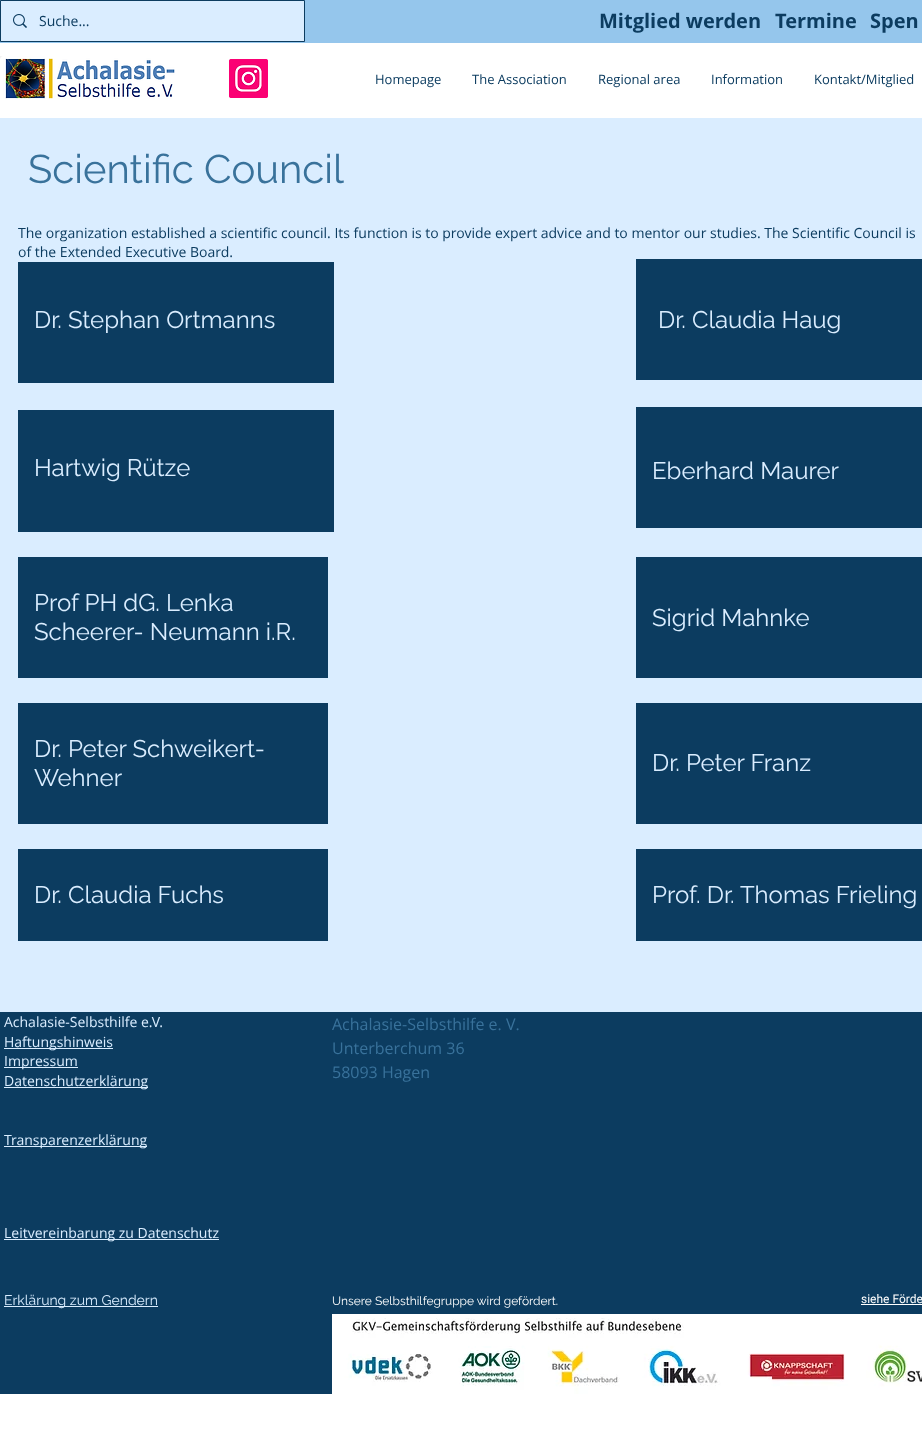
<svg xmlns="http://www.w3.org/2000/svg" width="922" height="1435">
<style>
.a{font:14px Open Sans;fill:#0c3c60}
.b{font:bold 20px Open Sans;fill:#0c3c60}
.c{font:13px 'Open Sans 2';fill:#0c3c60}
.d{font:40px Raleway;fill:#39729b}
.e{font:24px Raleway;fill:#daedff}
.f{font:14px Open Sans;fill:#daedff}
.g{font:16px 'Open Sans 2';fill:#39729b}
.h{font:14px 'Open Sans 2';fill:#daedff}
.i{font:14px Raleway;fill:#daedff}
.j{font:12px Raleway;fill:#fff}
.k{font:12px Roboto;fill:#fff}
</style>
<rect width="100%" height="100%" fill="#fff"/>
<path fill="#95c6ec" d="M0 0h922v43H0z"/>
<path fill="none" stroke="#0c3c60" d="M0.5 0.5h304v41H0.5z"/>
<path fill="#daedff" d="M1 1h303v40H1z"/>
<image href="1.png" x="13" y="14" width="14" height="14"/>
<image href="2.png" x="0" y="56" width="175" height="43"/>
<image href="3.png" x="229" y="59" width="39" height="39"/>
<path fill="#daedff" d="M0 118h922v894H0z"/>
<path fill="#0c3c60" d="M18 262h316v121H18z"/>
<path fill="#0c3c60" d="M636 259h286v121H636z"/>
<path fill="#0c3c60" d="M18 410h316v122H18z"/>
<path fill="#0c3c60" d="M636 407h286v121H636z"/>
<path fill="#0c3c60" d="M18 557h310v121H18z"/>
<path fill="#0c3c60" d="M636 557h286v121H636z"/>
<path fill="#0c3c60" d="M18 703h310v121H18z"/>
<path fill="#0c3c60" d="M636 703h286v121H636z"/>
<path fill="#0c3c60" d="M18 849h310v92H18z"/>
<path fill="#0c3c60" d="M636 849h286v92H636z"/>
<path fill="#0c3c60" d="M0 1012h922v382H0z"/>
<path fill="#daedff" d="M4 1048h109v1H4z"/>
<path fill="#daedff" d="M4 1067h74v1H4z"/>
<path fill="#daedff" d="M4 1087h144v1H4z"/>
<path fill="#daedff" d="M4 1146h143v1H4z"/>
<path fill="#daedff" d="M4 1239h215v1H4z"/>
<path fill="#daedff" d="M4 1306h154v1H4z"/>
<path fill="#fff" d="M861 1304h61v1H861z"/>
<image href="4.png" x="332" y="1314" width="590" height="80"/>
<text class="a" x="39" y="26">Suche...</text>
<text class="b" x="599" y="28">Mitglied werden</text>
<text class="b" x="775" y="28">Termine</text>
<text class="b" x="870" y="28">Spen</text>
<text class="c" x="375" y="84">Homepage</text>
<text class="c" x="472" y="84">The Association</text>
<text class="c" x="598" y="84">Regional area</text>
<text class="c" x="711" y="84">Information</text>
<text class="c" x="814" y="84">Kontakt/Mitglied</text>
<text class="d" x="28" y="183">Scientific Council</text>
<text class="a" x="18" y="238">The organization established a scientific council. Its function is to provide expert advice and to mentor our studies. The Scientific Council is</text>
<text class="a" x="18" y="257">of the Extended Executive Board.</text>
<text class="e" x="34" y="328">Dr. Stephan Ortmanns</text>
<text class="e" x="658" y="328">Dr. Claudia Haug</text>
<text class="e" x="34" y="476">Hartwig Rütze</text>
<text class="e" x="652" y="479">Eberhard Maurer</text>
<text class="e" x="34" y="611">Prof PH dG. Lenka</text>
<text class="e" x="34" y="640">Scheerer- Neumann i.R.</text>
<text class="e" x="652" y="626">Sigrid Mahnke</text>
<text class="e" x="34" y="757">Dr. Peter Schweikert-</text>
<text class="e" x="34" y="786">Wehner</text>
<text class="e" x="652" y="771">Dr. Peter Franz</text>
<text class="e" x="34" y="903">Dr. Claudia Fuchs</text>
<text class="e" x="652" y="903">Prof. Dr. Thomas Frieling</text>
<text class="f" x="4" y="1027">Achalasie-Selbsthilfe e.V.</text>
<text class="f" x="4" y="1047">Haftungshinweis</text>
<text class="f" x="4" y="1066">Impressum</text>
<text class="f" x="4" y="1086">Datenschutzerklärung</text>
<text class="f" x="4" y="1145">Transparenzerklärung</text>
<text class="g" x="332" y="1030">Achalasie-Selbsthilfe e. V.</text>
<text class="g" x="332" y="1054">Unterberchum 36</text>
<text class="g" x="332" y="1078">58093 Hagen</text>
<text class="h" x="4" y="1238">Leitvereinbarung zu Datenschutz</text>
<text class="i" x="4" y="1305">Erklärung zum Gendern</text>
<text class="j" x="332" y="1305">Unsere Selbsthilfegruppe wird gefördert.</text>
<text class="k" x="861" y="1303">siehe Förde</text>
</svg>
